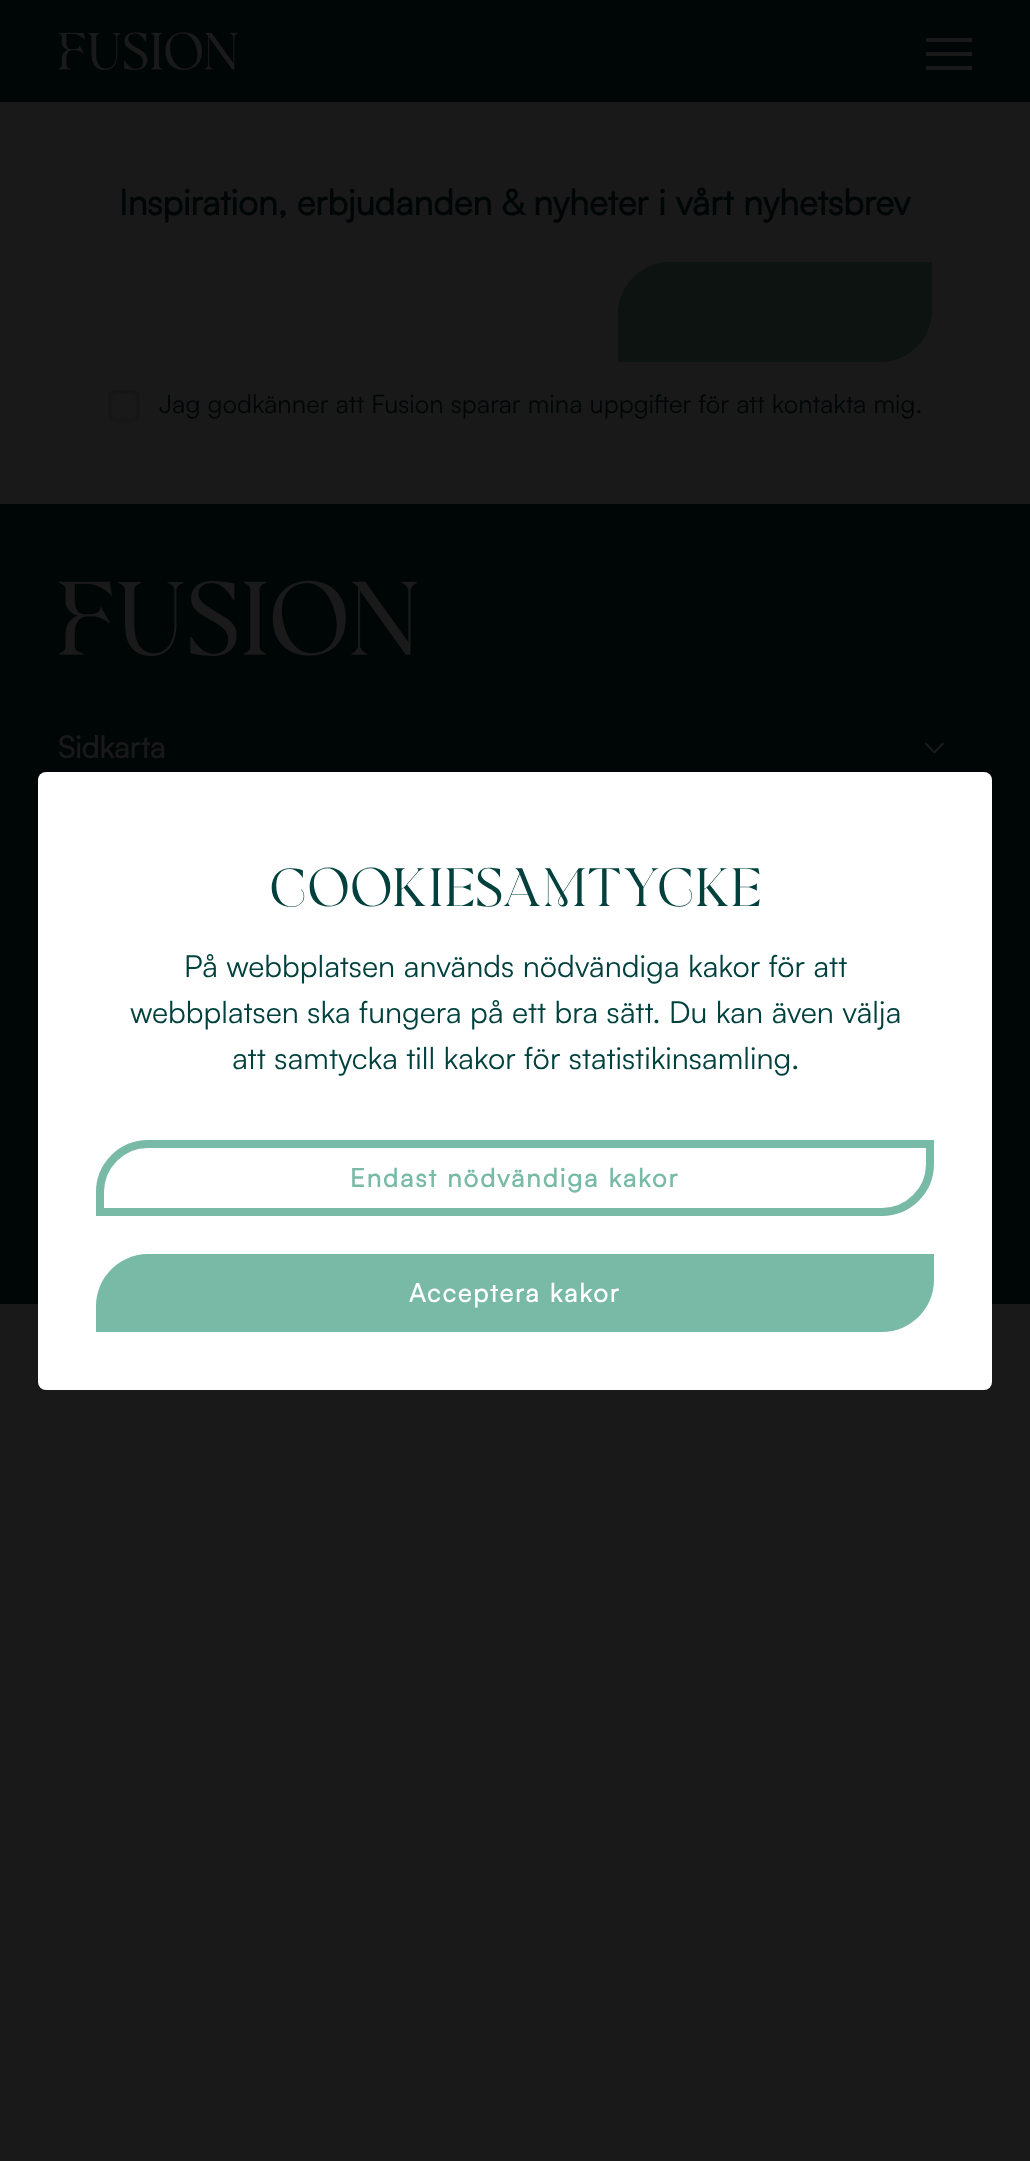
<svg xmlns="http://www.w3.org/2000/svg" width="1030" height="2161">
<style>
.a{font:bold 35.2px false;fill:#000606}
.b{font:25.6px false;fill:#000606}
.c{font:bold 30.4px false;fill:#191919}
.d{font:54.5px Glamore;fill:#00413d}
.e{font:30.4px false;fill:#00413d}
.f{font:bold 25.6px false;letter-spacing:2px;fill:#78baa6}
.g{font:bold 25.6px false;letter-spacing:2px;fill:#fff}
</style>
<rect width="100%" height="100%" fill="#191919"/>
<path fill="#000606" d="M0 0h1030v102H0z"/>
<image href="1.png" x="58" y="32" width="180" height="38"/>
<path fill="#191919" d="M926 38h46v4H926z"/>
<path fill="#191919" d="M926 52h46v4H926z"/>
<path fill="#191919" d="M926 66h46v4H926z"/>
<path fill="#0c1311" d="M670 262h262v48c0 28.5-23.5 52-52 52h-262v-48c0-28.5 23.5-52 52-52z"/>
<rect fill="none" stroke="#161616" stroke-width="4" x="110" y="392" width="28" height="28" rx="6"/>
<path fill="#000606" d="M0 504h1030v800H0z"/>
<image href="2.png" x="58" y="580" width="360" height="76"/>
<image href="3.png" x="924" y="742" width="20" height="12"/>
<rect fill="#fff" x="38" y="772" width="954" height="618" rx="8"/>
<path fill="none" stroke="#78baa6" stroke-width="8" d="M148 1144h782v20c0 26.5-21.5 48-48 48h-782v-20c0-26.5 21.5-48 48-48z"/>
<path fill="#78baa6" d="M148 1254h786v26c0 28.5-23.5 52-52 52h-786v-26c0-28.5 23.5-52 52-52z"/>
<text class="a" x="119" y="215">Inspiration, erbjudanden &amp; nyheter i vårt nyhetsbrev</text>
<text class="b" x="159" y="413">Jag godkänner att Fusion sparar mina uppgifter för att kontakta mig.</text>
<text class="c" x="58" y="758">Sidkarta</text>
<text class="d" x="270" y="906">Cookiesamtycke</text>
<text class="e" x="184" y="977">På webbplatsen används nödvändiga kakor för att</text>
<text class="e" x="130" y="1023">webbplatsen ska fungera på ett bra sätt. Du kan även välja</text>
<text class="e" x="232" y="1069">att samtycka till kakor för statistikinsamling.</text>
<text class="f" x="350" y="1187">Endast nödvändiga kakor</text>
<text class="g" x="409" y="1302">Acceptera kakor</text>
</svg>
